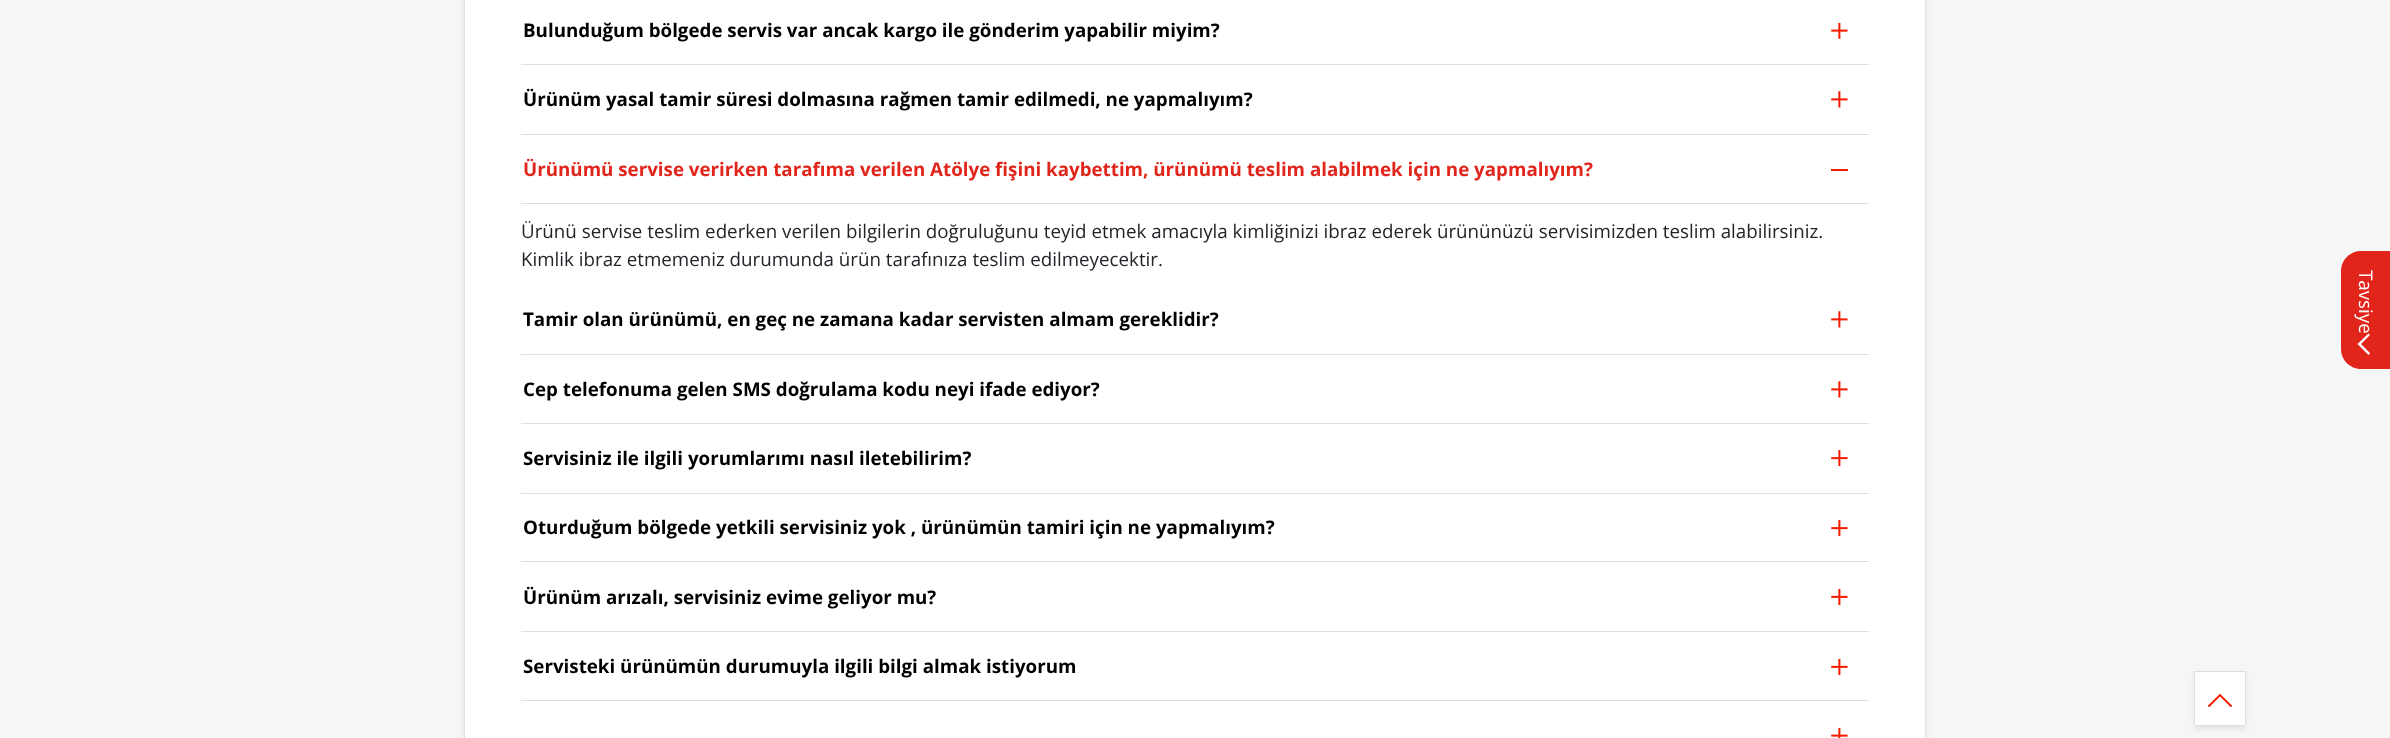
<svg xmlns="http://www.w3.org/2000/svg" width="2390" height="738">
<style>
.a{font:bold 18.75px Open Sans;fill:#000}
.b{font:bold 18.75px Open Sans;fill:#e1251b}
.c{font:18.75px Open Sans;fill:#212529}
.d{font:18.75px Open Sans;fill:#fff}
</style>
<rect width="100%" height="100%" fill="#f5f6f6"/>
<path fill="#00000012" filter="blur(2.5px)" d="M464 -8h1462v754H464z"/>
<path fill="#fff" stroke="#dee2e6" d="M464.5 -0.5h1461v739H464.5z"/>
<path fill="#dfdfdf" d="M521 64h1348v1H521z"/>
<image href="1.png" x="1831" y="23" width="17" height="16"/>
<path fill="#dfdfdf" d="M521 134h1348v1H521z"/>
<image href="2.png" x="1831" y="91" width="17" height="17"/>
<path fill="#dfdfdf" d="M521 203h1348v1H521z"/>
<path fill="#f51b00" d="M1831 169h17v2H1831z"/>
<path fill="#dfdfdf" d="M521 354h1348v1H521z"/>
<image href="2.png" x="1831" y="311" width="17" height="17"/>
<path fill="#dfdfdf" d="M521 423h1348v1H521z"/>
<image href="2.png" x="1831" y="381" width="17" height="17"/>
<path fill="#dfdfdf" d="M521 493h1348v1H521z"/>
<image href="3.png" x="1831" y="450" width="17" height="16"/>
<path fill="#dfdfdf" d="M521 561h1348v1H521z"/>
<image href="3.png" x="1831" y="520" width="17" height="16"/>
<path fill="#dfdfdf" d="M521 631h1348v1H521z"/>
<image href="4.png" x="1831" y="589" width="17" height="16"/>
<path fill="#dfdfdf" d="M521 700h1348v1H521z"/>
<image href="4.png" x="1831" y="659" width="17" height="16"/>
<image href="5.png" x="1831" y="728" width="17" height="10"/>
<path fill="#e1251b" d="M2390 251v118h-29c-11 0-20-9-20-20v-78c0-11 9-20 20-20z"/>
<path fill="#fff" d="M2368.5 333.5l1.5 1.5l-9 9l9 9l-1.5 2l-11-11z"/>
<path fill="#00000012" filter="blur(2.5px)" d="M2194 674h52v55H2194z"/>
<path fill="#fff" stroke="#dedede" d="M2194.5 671.5h51v54H2194.5z"/>
<path fill="none" stroke="#f51b00" stroke-width="1.9" stroke-linecap="round" d="M2209 706l11-11l11 11"/>
<text class="a" x="523" y="37">Bulunduğum bölgede servis var ancak kargo ile gönderim yapabilir miyim?</text>
<text class="a" x="523" y="106">Ürünüm yasal tamir süresi dolmasına rağmen tamir edilmedi, ne yapmalıyım?</text>
<text class="b" x="523" y="176">Ürünümü servise verirken tarafıma verilen Atölye fişini kaybettim, ürünümü teslim alabilmek için ne yapmalıyım?</text>
<text class="c" x="521" y="238">Ürünü servise teslim ederken verilen bilgilerin doğruluğunu teyid etmek amacıyla kimliğinizi ibraz ederek ürününüzü servisimizden teslim alabilirsiniz.</text>
<text class="c" x="521" y="266">Kimlik ibraz etmemeniz durumunda ürün tarafınıza teslim edilmeyecektir.</text>
<text class="a" x="523" y="326">Tamir olan ürünümü, en geç ne zamana kadar servisten almam gereklidir?</text>
<text class="a" x="523" y="396">Cep telefonuma gelen SMS doğrulama kodu neyi ifade ediyor?</text>
<text class="a" x="523" y="465">Servisiniz ile ilgili yorumlarımı nasıl iletebilirim?</text>
<text class="a" x="523" y="534">Oturduğum bölgede yetkili servisiniz yok , ürünümün tamiri için ne yapmalıyım?</text>
<text class="a" x="523" y="604">Ürünüm arızalı, servisiniz evime geliyor mu?</text>
<text class="a" x="523" y="673">Servisteki ürünümün durumuyla ilgili bilgi almak istiyorum</text>
<text class="d" x="2359" y="270" transform="rotate(90 2359 270)">Tavsiye</text>
</svg>
